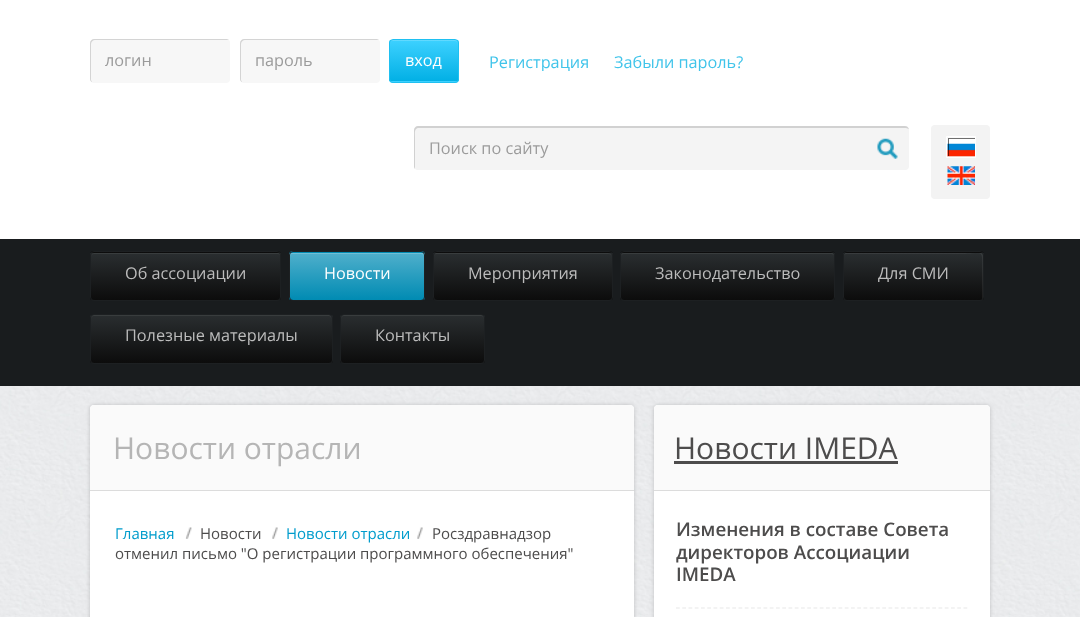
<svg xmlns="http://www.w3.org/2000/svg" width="1080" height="617">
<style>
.a{font:16.25px Open Sans;fill:#9b9b9b}
.b{font:16.25px Open Sans;fill:#fefefe}
.c{font:16.25px Open Sans;fill:#40c4ea}
.d{font:16.25px Open Sans;fill:#bcbcbc}
.e{font:30px Open Sans;fill:#b5b5b5}
.f{font:15px Open Sans;fill:#009ccc}
.g{font:15px Open Sans;fill:#4d4c4c}
.h{font:30px Open Sans;fill:#4d4c4c}
.i{font:600 18.75px Open Sans;fill:#4d4c4c}
</style>
<defs>
<clipPath id="clip1"><rect x="389" y="39" width="70" height="44" rx="4"/></clipPath>
<linearGradient id="g1" gradientUnits="userSpaceOnUse" x1="424" y1="40" x2="424" y2="81"><stop offset="0" stop-color="#3dd1ff"/><stop offset="1" stop-color="#02b0e5"/></linearGradient>
<linearGradient id="g2" gradientUnits="userSpaceOnUse" x1="424" y1="81" x2="424" y2="123"><stop offset="0" stop-color="#3dd1ff"/><stop offset="1" stop-color="#02b0e5"/></linearGradient>
<clipPath id="clip2"><path d="M948 138h27v18H948z"/></clipPath>
<clipPath id="clip3"><rect x="90" y="251" width="191" height="50" rx="4"/></clipPath>
<linearGradient id="g3" gradientUnits="userSpaceOnUse" x1="186" y1="205" x2="186" y2="253"><stop offset="0" stop-color="#2a2e30"/><stop offset="1" stop-color="#0c0c0c"/></linearGradient>
<linearGradient id="g4" gradientUnits="userSpaceOnUse" x1="186" y1="253" x2="186" y2="300"><stop offset="0" stop-color="#2a2e30"/><stop offset="1" stop-color="#0c0c0c"/></linearGradient>
<clipPath id="clip4"><rect x="289" y="251" width="136" height="50" rx="4"/></clipPath>
<linearGradient id="g5" gradientUnits="userSpaceOnUse" x1="357" y1="205" x2="357" y2="253"><stop offset="0" stop-color="#4fafcb"/><stop offset="1" stop-color="#008bb3"/></linearGradient>
<linearGradient id="g6" gradientUnits="userSpaceOnUse" x1="357" y1="253" x2="357" y2="300"><stop offset="0" stop-color="#4fafcb"/><stop offset="1" stop-color="#008bb3"/></linearGradient>
<clipPath id="clip5"><rect x="433" y="251" width="180" height="50" rx="4"/></clipPath>
<linearGradient id="g7" gradientUnits="userSpaceOnUse" x1="523" y1="205" x2="523" y2="253"><stop offset="0" stop-color="#2a2e30"/><stop offset="1" stop-color="#0c0c0c"/></linearGradient>
<linearGradient id="g8" gradientUnits="userSpaceOnUse" x1="523" y1="253" x2="523" y2="300"><stop offset="0" stop-color="#2a2e30"/><stop offset="1" stop-color="#0c0c0c"/></linearGradient>
<clipPath id="clip6"><rect x="620" y="251" width="215" height="50" rx="4"/></clipPath>
<linearGradient id="g9" gradientUnits="userSpaceOnUse" x1="728" y1="205" x2="728" y2="253"><stop offset="0" stop-color="#2a2e30"/><stop offset="1" stop-color="#0c0c0c"/></linearGradient>
<linearGradient id="g10" gradientUnits="userSpaceOnUse" x1="728" y1="253" x2="728" y2="300"><stop offset="0" stop-color="#2a2e30"/><stop offset="1" stop-color="#0c0c0c"/></linearGradient>
<clipPath id="clip7"><rect x="843" y="251" width="141" height="50" rx="4"/></clipPath>
<linearGradient id="g11" gradientUnits="userSpaceOnUse" x1="913" y1="205" x2="913" y2="253"><stop offset="0" stop-color="#2a2e30"/><stop offset="1" stop-color="#0c0c0c"/></linearGradient>
<linearGradient id="g12" gradientUnits="userSpaceOnUse" x1="913" y1="253" x2="913" y2="300"><stop offset="0" stop-color="#2a2e30"/><stop offset="1" stop-color="#0c0c0c"/></linearGradient>
<clipPath id="clip8"><rect x="90" y="314" width="243" height="50" rx="4"/></clipPath>
<linearGradient id="g13" gradientUnits="userSpaceOnUse" x1="211" y1="315" x2="211" y2="363"><stop offset="0" stop-color="#2a2e30"/><stop offset="1" stop-color="#0c0c0c"/></linearGradient>
<clipPath id="clip9"><rect x="340" y="314" width="145" height="50" rx="4"/></clipPath>
<linearGradient id="g14" gradientUnits="userSpaceOnUse" x1="413" y1="315" x2="413" y2="363"><stop offset="0" stop-color="#2a2e30"/><stop offset="1" stop-color="#0c0c0c"/></linearGradient>
<clipPath id="clip10"><path d="M464 39h280v32H464z"/></clipPath>
</defs>
<rect width="100%" height="100%" fill="#fff"/>
<image href="1.png" x="0" y="386" width="1080" height="231"/>
<rect fill="#f7f7f7" x="90" y="39" width="140" height="44" rx="4"/>
<path fill="#00000024" d="M95 40h134c-1-1-2-1-3-1h-132c-2 0-4 2-4 4v36c0 1 1 3 2 3l-1-2v-36c0-2 2-4 4-4z"/>
<rect fill="#f7f7f7" x="240" y="39" width="140" height="44" rx="4"/>
<path fill="#00000024" d="M245 40h134c-1-1-2-1-3-1h-132c-2 0-4 2-4 4v36c0 1 1 3 2 3l-1-2v-36c0-2 2-4 4-4z"/>
<g clip-path="url(#clip1)">
<path fill="url(#g1)" d="M389 40h70v41H389z"/>
<path fill="url(#g2)" d="M389 81h70v2H389z"/>
</g>
<path fill="#ffffff30" d="M392 41h63c1 0 3 1 3 3c0-7-7-4-13-4h-42c-6 0-13-3-13 4c0-2 1-3 2-3z"/>
<rect fill="none" stroke="#1fc0f1" x="389.5" y="39.5" width="69" height="43" rx="3.5"/>
<rect fill="#f4f4f4" x="414" y="126" width="495" height="44" rx="4"/>
<path fill="#00000024" d="M419 128h487l3 1c-1-2-2-3-4-3h-487c-2 0-4 2-4 4v36c0 1 0 2 1 3v-32c0-4-1-9 4-9z"/>
<image href="2.png" x="877" y="138" width="21" height="21"/>
<rect fill="#f3f3f3" x="931" y="125" width="59" height="74" rx="4"/>
<image href="3.png" x="947" y="137" width="28" height="20"/>
<path fill="none" stroke="#fff" d="M946.5 136.5h29v21H946.5z"/>
<g clip-path="url(#clip2)">
<path fill="#00000091" fill-rule="evenodd" d="M935 125c-2 0-4 2-4 4v66c0 2 2 4 4 4h51c2 0 4-2 4-4v-66c0-2-2-4-4-4zm14 14v19h27v-19z"/>
</g>
<image href="4.png" x="947" y="166" width="28" height="19"/>
<path fill="#191c1e" d="M0 239h1080v147H0z"/>
<g clip-path="url(#clip3)">
<path fill="url(#g3)" d="M90 251h191v2H90z"/>
<path fill="url(#g4)" d="M90 253h191v47H90z"/>
</g>
<path fill="#393d3e" d="M94 254h184c1 0 2 1 2 2c0-2-1-3-2-3h-184l-2 1l-1 2c0-1 1-2 3-2z"/>
<rect fill="none" stroke="#1d2022" x="90.5" y="251.5" width="190" height="49" rx="3.5"/>
<g clip-path="url(#clip4)">
<path fill="url(#g5)" d="M289 251h136v2H289z"/>
<path fill="url(#g6)" d="M289 253h136v47H289z"/>
</g>
<path fill="#70bed5" d="M292 254h129c2 0 3 1 3 2c0-2-1-3-2-3h-130c-1 0-2 1-2 3c0-1 1-2 2-2z"/>
<rect fill="none" stroke="#1d2022" x="289.5" y="251.5" width="135" height="49" rx="3.5"/>
<g clip-path="url(#clip5)">
<path fill="url(#g7)" d="M433 251h180v2H433z"/>
<path fill="url(#g8)" d="M433 253h180v47H433z"/>
</g>
<path fill="#393d3e" d="M436 254h173c1 0 2 1 2 2c0-2-1-3-3-3h-172l-1 1l-1 2c0-1 1-2 2-2z"/>
<rect fill="none" stroke="#1d2022" x="433.5" y="251.5" width="179" height="49" rx="3.5"/>
<g clip-path="url(#clip6)">
<path fill="url(#g9)" d="M620 251h215v2H620z"/>
<path fill="url(#g10)" d="M620 253h215v47H620z"/>
</g>
<path fill="#393d3e" d="M624 254h207c2 0 3 1 3 2c0-2-1-3-2-3h-208c-2 0-3 1-3 3c0-1 1-2 3-2z"/>
<rect fill="none" stroke="#1d2022" x="620.5" y="251.5" width="214" height="49" rx="3.5"/>
<g clip-path="url(#clip7)">
<path fill="url(#g11)" d="M843 251h141v2H843z"/>
<path fill="url(#g12)" d="M843 253h141v47H843z"/>
</g>
<path fill="#ffffff12" d="M846 254h112c27 0 24-6 24 16v30c1-1 1-2 1-2v-42c0-2-1-3-3-3h-134c-1 0-2 1-2 3c0-1 1-2 2-2z"/>
<rect fill="none" stroke="#1d2022" x="843.5" y="251.5" width="140" height="49" rx="3.5"/>
<g clip-path="url(#clip8)">
<path fill="url(#g13)" d="M90 315h243v48H90z"/>
</g>
<path fill="#393d3e" d="M94 316h235c1 0 2 1 2 3c0-2 0-4-3-4h-234c-3 0-3 2-3 4c0-2 1-3 3-3z"/>
<rect fill="none" stroke="#1d2022" x="90.5" y="314.5" width="242" height="49" rx="3.5"/>
<g clip-path="url(#clip9)">
<path fill="url(#g14)" d="M340 315h145v48H340z"/>
</g>
<path fill="#393d3e" d="M344 316h137c2 0 3 1 3 3c0-2 0-4-2-4h-138c-3 0-3 2-3 4c0-2 1-3 3-3z"/>
<rect fill="none" stroke="#1d2022" x="340.5" y="314.5" width="144" height="49" rx="3.5"/>
<rect fill="#0000002e" filter="blur(2px)" x="90" y="405" width="544" height="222" rx="4"/>
<rect fill="#fff" x="90" y="405" width="544" height="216" rx="4"/>
<path fill="#fafafa" d="M94 405h536c2 0 4 2 4 4v82h-544v-82c0-2 2-4 4-4z"/>
<path fill="#dcdcdc" d="M90 490h544v1H90z"/>
<image href="5.png" x="185" y="527" width="7" height="12"/>
<image href="6.png" x="272" y="527" width="6" height="12"/>
<image href="6.png" x="417" y="527" width="6" height="12"/>
<rect fill="#0000002e" filter="blur(2px)" x="654" y="405" width="336" height="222" rx="4"/>
<rect fill="#fff" x="654" y="405" width="336" height="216" rx="4"/>
<path fill="#fafafa" d="M658 405h328c2 0 4 2 4 4v82h-336v-82c0-2 2-4 4-4z"/>
<path fill="#dcdcdc" d="M654 490h336v1H654z"/>
<path fill="#4d4c4c" d="M674 461h224v3H674z"/>
<path fill="none" stroke="#e8e8e8" stroke-width="1.2" stroke-dasharray="3.75 2.5" d="M676 608h291.5"/>
<text class="a" x="105" y="66">логин</text>
<text class="a" x="255" y="66">пароль</text>
<text class="b" x="405" y="66">вход</text>
<g clip-path="url(#clip10)">
<text class="c" x="489" y="68">Регистрация</text>
<text class="c" x="614" y="68">Забыли пароль?</text>
</g>
<text class="a" x="429" y="154">Поиск по сайту</text>
<text class="d" x="125" y="279">Об ассоциации</text>
<text class="b" x="324" y="279">Новости</text>
<text class="d" x="468" y="279">Мероприятия</text>
<text class="d" x="655" y="279">Законодательство</text>
<text class="d" x="878" y="279">Для СМИ</text>
<text class="d" x="125" y="341">Полезные материалы</text>
<text class="d" x="375" y="341">Контакты</text>
<text class="e" x="113" y="459">Новости отрасли</text>
<text class="f" x="115" y="539">Главная</text>
<text class="g" x="200" y="539">Новости</text>
<text class="f" x="286" y="539">Новости отрасли</text>
<text class="g" x="432" y="539">Росздравнадзор</text>
<text class="g" x="115" y="559">отменил письмо "О регистрации программного обеспечения"</text>
<text class="h" x="674" y="459">Новости IMEDA</text>
<text class="i" x="676" y="536">Изменения в составе Совета</text>
<text class="i" x="676" y="559">директоров Ассоциации</text>
<text class="i" x="676" y="581">IMEDA</text>
</svg>
